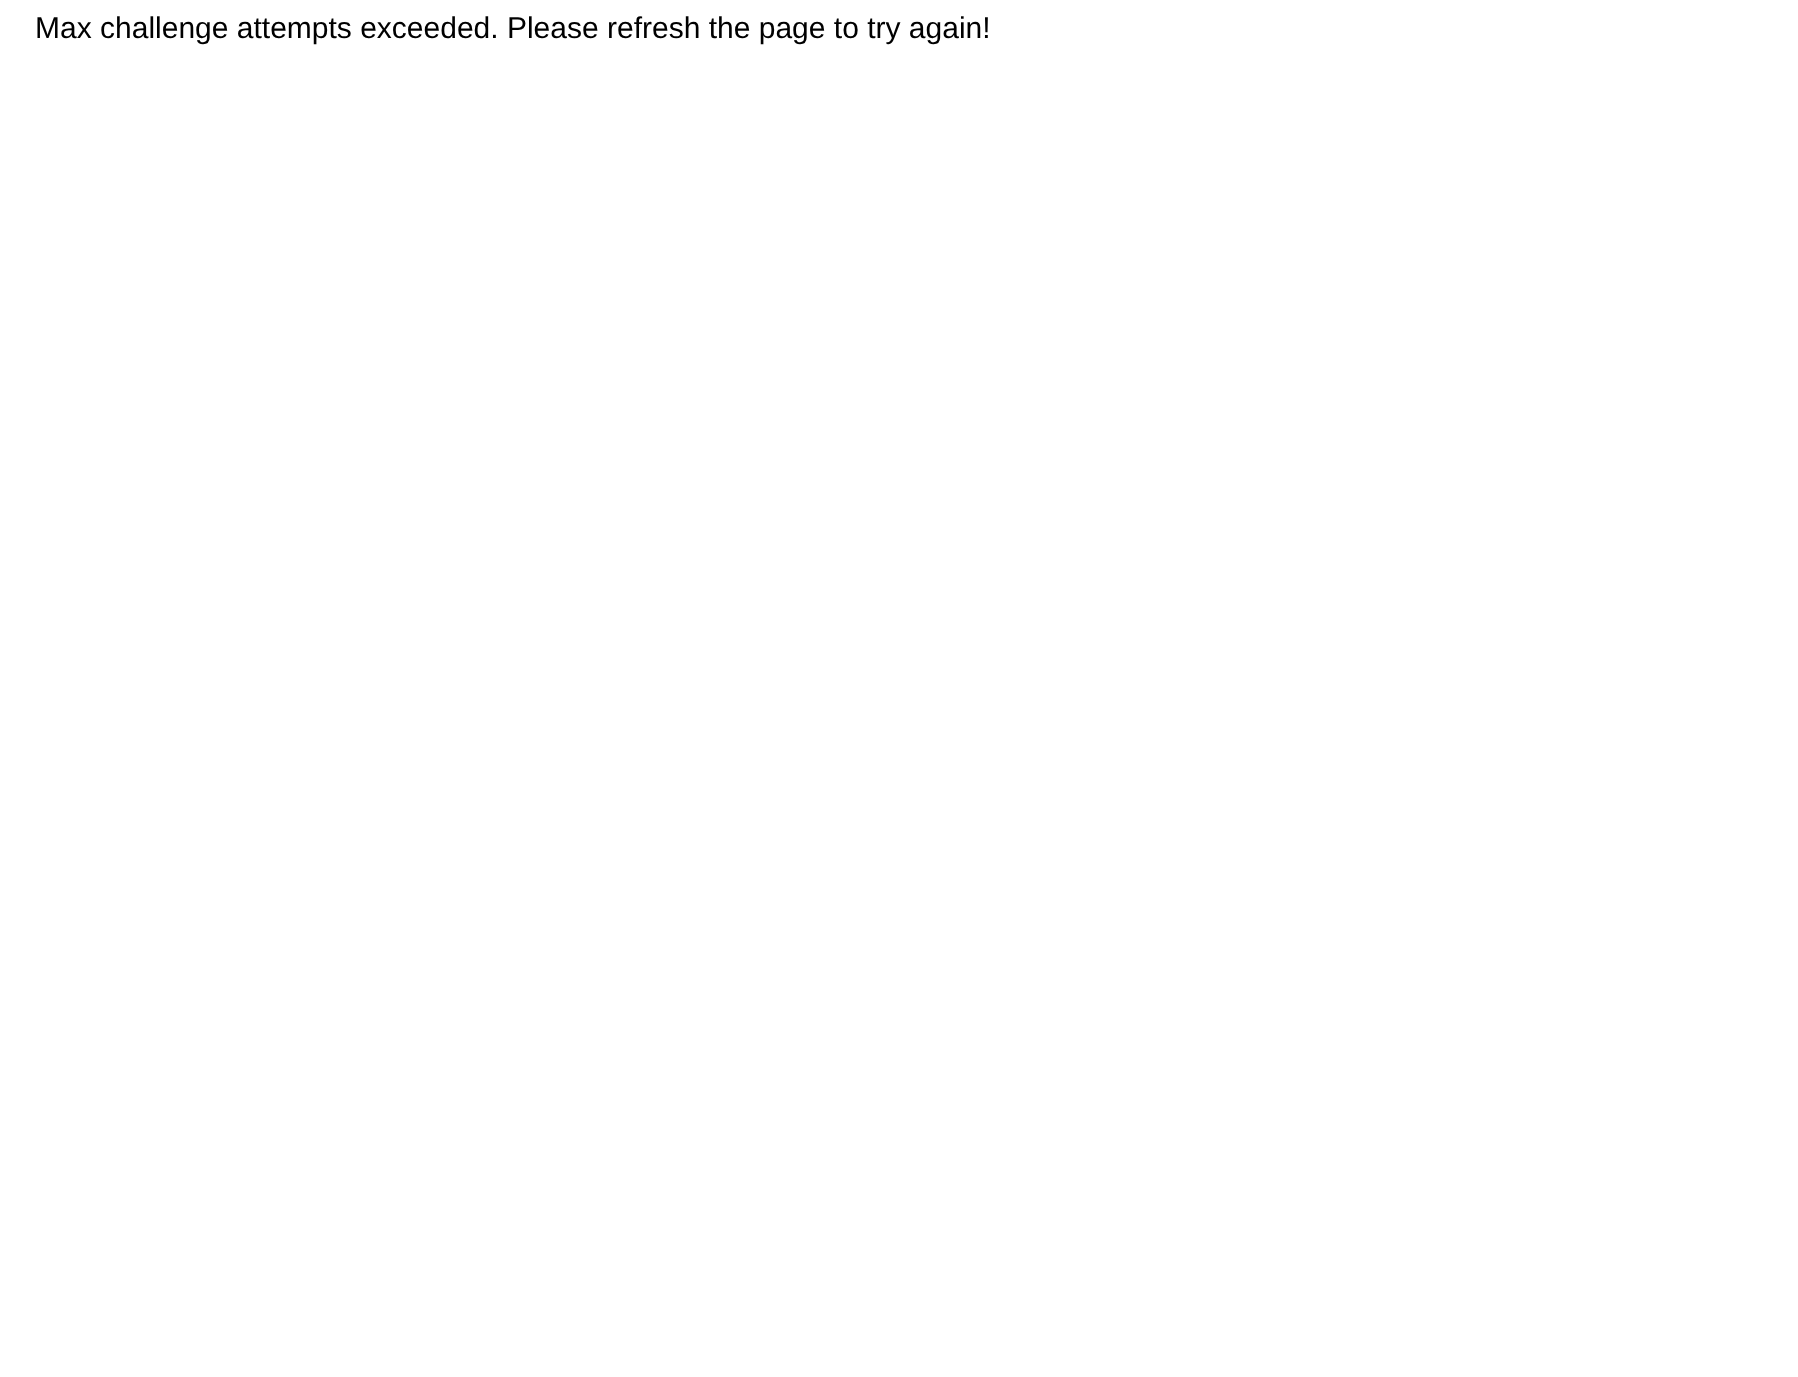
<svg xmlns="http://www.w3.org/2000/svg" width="1798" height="1377">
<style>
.a{font:30px Liberation Sans;fill:#000}
</style>
<rect width="100%" height="100%" fill="#fff"/>
<text class="a" x="35" y="38">Max challenge attempts exceeded. Please refresh the page to try again!</text>
</svg>
